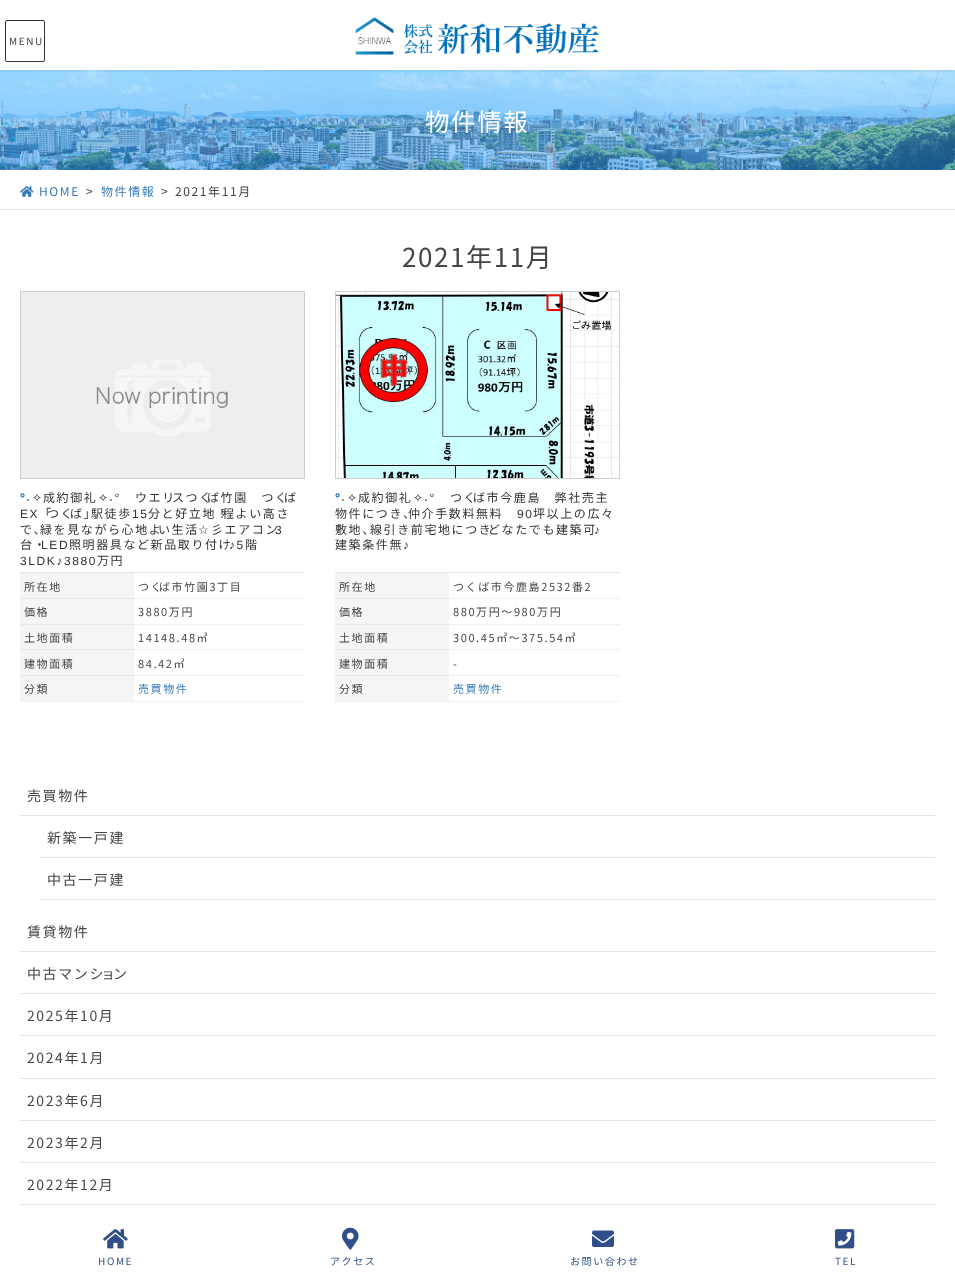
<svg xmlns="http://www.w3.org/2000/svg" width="955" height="1277">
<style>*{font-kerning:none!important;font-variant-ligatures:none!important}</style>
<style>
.a{font:100 10px Noto Sans JP;letter-spacing:1.6px;fill:#454545}
.b{font:100 24.5px Noto Sans JP;letter-spacing:1.6px;fill:#fff}
.c{font:100 12px Noto Sans JP;letter-spacing:1.6px;fill:#337ab7}
.d{font:100 12px Noto Sans JP;letter-spacing:1.6px;fill:#454545}
.e{font:100 26px Noto Sans JP;letter-spacing:1.6px;fill:#454545}
.f{font:bold 12px Noto Sans;letter-spacing:1.6px;fill:#337ab7}
.g{font:12px Liberation Sans;letter-spacing:1.6px;fill:#333}
.h{font:12px DejaVu Sans;letter-spacing:1.6px;fill:#333}
.i{font:100 12px Noto Sans JP;letter-spacing:1.6px;fill:#333}
.j{font:100 11px Noto Sans JP;letter-spacing:1.6px;fill:#454545}
.k{font:100 11px Noto Sans JP;letter-spacing:1.6px;fill:#337ab7}
.l{font:100 11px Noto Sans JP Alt;letter-spacing:1.6px;fill:#454545}
.m{font:100 14px Noto Sans JP;letter-spacing:1.6px;fill:#454545}
.n{font:100 10px Noto Sans JP;letter-spacing:1.6px;fill:#314f89}
</style>
<defs>
<clipPath id="clip1"><path d="M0 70h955v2H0z"/></clipPath>
</defs>
<rect width="100%" height="100%" fill="#fff"/>
<path fill="#f2f2f2" d="M334 598h1v1H334z"/>
<path fill="#f2f2f2" d="M448 598h172v1H448z"/>
<path fill="#f2f2f2" d="M334 624h1v1H334z"/>
<path fill="#f2f2f2" d="M448 624h172v1H448z"/>
<path fill="#f2f2f2" d="M334 649h1v1H334z"/>
<path fill="#f2f2f2" d="M448 649h172v1H448z"/>
<path fill="#f2f2f2" d="M334 675h1v1H334z"/>
<path fill="#f2f2f2" d="M448 675h172v1H448z"/>
<path fill="#f2f2f2" d="M334 701h286v1H334z"/>
<path fill="#f2f2f2" d="M133 598h172v1H133z"/>
<path fill="#f2f2f2" d="M133 624h172v1H133z"/>
<path fill="#f2f2f2" d="M133 649h172v1H133z"/>
<path fill="#f2f2f2" d="M133 675h172v1H133z"/>
<path fill="#f2f2f2" d="M20 701h285v1H20z"/>
<image href="2.png" x="0" y="70" width="955" height="100"/>
<g clip-path="url(#clip1)">
<path fill="#0000001a" filter="blur(1.5px)" d="M0 1h955v70H0z"/>
</g>
<image href="1.png" x="355" y="17" width="244" height="38"/>
<rect fill="none" stroke="#333" x="5.5" y="20.5" width="39" height="41" rx="1.5"/>
<path fill="#e9e9e9" d="M0 209h955v1H0z"/>
<image href="3.png" x="20" y="186" width="14" height="11"/>
<path fill="none" stroke="#ccc" d="M20.5 291.5h284v187H20.5z"/>
<image href="4.png" x="21" y="292" width="283" height="186"/>
<path fill="#e5e5e5" d="M20 572h285v1H20z"/>
<path fill="#f5f5f5" d="M20 573h114v25H20z"/>
<path fill="#e9e9e9" d="M20 598h114v1H20z"/>
<path fill="#ddd" d="M133 598h1v1H133z"/>
<path fill="#f5f5f5" d="M20 599h114v25H20z"/>
<path fill="#f5f5f5" d="M20 625h114v24H20z"/>
<path fill="#e9e9e9" d="M20 624h114v1H20z"/>
<path fill="#ddd" d="M133 624h1v1H133z"/>
<path fill="#e9e9e9" d="M20 649h114v1H20z"/>
<path fill="#ddd" d="M133 649h1v1H133z"/>
<path fill="#f5f5f5" d="M20 650h114v25H20z"/>
<path fill="#e9e9e9" d="M20 675h114v1H20z"/>
<path fill="#ddd" d="M133 675h1v1H133z"/>
<path fill="#f5f5f5" d="M20 676h114v25H20z"/>
<path fill="#e6e6e6" d="M133 701h1v1H133z"/>
<path fill="none" stroke="#ccc" d="M335.5 291.5h284v187H335.5z"/>
<image href="5.png" x="336" y="292" width="283" height="186"/>
<path fill="#e5e5e5" d="M335 572h285v1H335z"/>
<path fill="#f5f5f5" d="M335 573h114v25H335z"/>
<path fill="#e9e9e9" d="M335 598h114v1H335z"/>
<path fill="#ddd" d="M448 598h1v1H448z"/>
<path fill="#f5f5f5" d="M335 599h114v25H335z"/>
<path fill="#f5f5f5" d="M335 625h114v24H335z"/>
<path fill="#e9e9e9" d="M335 624h114v1H335z"/>
<path fill="#ddd" d="M448 624h1v1H448z"/>
<path fill="#e9e9e9" d="M335 649h114v1H335z"/>
<path fill="#ddd" d="M448 649h1v1H448z"/>
<path fill="#f5f5f5" d="M335 650h114v25H335z"/>
<path fill="#e9e9e9" d="M335 675h114v1H335z"/>
<path fill="#ddd" d="M448 675h1v1H448z"/>
<path fill="#f5f5f5" d="M335 676h114v25H335z"/>
<path fill="#e6e6e6" d="M448 701h1v1H448z"/>
<path fill="#e5e5e5" d="M20 815h915v1H20z"/>
<path fill="#e5e5e5" d="M40 857h895v1H40z"/>
<path fill="#e5e5e5" d="M40 899h895v1H40z"/>
<path fill="#e5e5e5" d="M20 951h915v1H20z"/>
<path fill="#e5e5e5" d="M20 993h915v1H20z"/>
<path fill="#e5e5e5" d="M20 1035h915v1H20z"/>
<path fill="#e5e5e5" d="M20 1078h915v1H20z"/>
<path fill="#e5e5e5" d="M20 1120h915v1H20z"/>
<path fill="#e5e5e5" d="M20 1162h915v1H20z"/>
<path fill="#e5e5e5" d="M20 1204h915v1H20z"/>
<image href="6.png" x="103" y="1229" width="25" height="20"/>
<image href="7.png" x="342" y="1227" width="17" height="23"/>
<image href="8.png" x="592" y="1230" width="22" height="17"/>
<image href="9.png" x="835" y="1229" width="20" height="20"/>
<text class="a" x="9" y="45">MENU</text>
<text class="b" x="425" y="131">物件情報</text>
<text class="c" x="39" y="196">HOME</text>
<text class="d" x="86" y="196">&gt;</text>
<text class="c" x="101" y="196">物件情報</text>
<text class="d" x="161" y="196">&gt;</text>
<text class="d" x="175" y="196">2021年11月</text>
<text class="e" x="402" y="267">2021年11月</text>
<text class="f" x="20" y="502">°</text>
<text class="g" x="26" y="502">˖</text>
<text class="h" x="32" y="502">✧</text>
<text class="i" x="43" y="502">成約御礼</text>
<text class="h" x="98" y="502">✧</text>
<text class="g" x="109" y="502">˖°</text>
<text class="i" x="135" y="502">ウエリ</text>
<text class="i" x="172" y="502">スつく</text>
<text class="i" x="207" y="502">ば竹園　つく</text>
<text class="i" x="284" y="502">ば</text>
<text class="g" x="20" y="518">EX</text>
<text class="i" x="39" y="518">「</text>
<text class="i" x="47" y="518">つく</text>
<text class="i" x="70" y="518">ば」</text>
<text class="i" x="91" y="518">駅徒歩</text>
<text class="g" x="132" y="518">15</text>
<text class="i" x="148" y="518">分と好立地！</text>
<text class="i" x="222" y="518">程よい高さ</text>
<text class="i" x="20" y="534">で、</text>
<text class="i" x="40" y="534">緑を見ながら心地よ</text>
<text class="i" x="158" y="534">い生活</text>
<text class="h" x="198" y="534">☆</text>
<text class="i" x="211" y="534">彡エアコン</text>
<text class="g" x="275" y="534">3</text>
<text class="i" x="20" y="549">台・</text>
<text class="g" x="41" y="549">LED</text>
<text class="i" x="69" y="549">照明器具など新品取り付け</text>
<text class="g" x="229" y="549">♪5</text>
<text class="i" x="245" y="549">階</text>
<text class="g" x="20" y="565">3LDK♪3880</text>
<text class="i" x="97" y="565">万円</text>
<text class="j" x="24" y="591">所在地</text>
<text class="j" x="138" y="591">つく</text>
<text class="j" x="159" y="591">ば市竹園3丁目</text>
<text class="j" x="24" y="616">価格</text>
<text class="j" x="138" y="616">3880万円</text>
<text class="j" x="24" y="642">土地面積</text>
<text class="j" x="138" y="642">14148.48㎡</text>
<text class="j" x="24" y="668">建物面積</text>
<text class="j" x="138" y="668">84.42㎡</text>
<text class="j" x="24" y="693">分類</text>
<text class="k" x="138" y="693">売買物件</text>
<text class="f" x="335" y="502">°</text>
<text class="g" x="341" y="502">˖</text>
<text class="h" x="347" y="502">✧</text>
<text class="i" x="358" y="502">成約御礼</text>
<text class="h" x="413" y="502">✧</text>
<text class="g" x="424" y="502">˖°</text>
<text class="i" x="450" y="502">つく</text>
<text class="i" x="473" y="502">ば市今鹿島　弊社売主</text>
<text class="i" x="335" y="518">物件につき、</text>
<text class="i" x="408" y="518">仲介手数料無料</text>
<text class="g" x="517" y="518">90</text>
<text class="i" x="533" y="518">坪以上の広々</text>
<text class="i" x="335" y="534">敷地、</text>
<text class="i" x="370" y="534">線引き前宅地につき</text>
<text class="i" x="488" y="534">どなたでも建築可</text>
<text class="g" x="594" y="534">♪</text>
<text class="i" x="335" y="549">建築条件無</text>
<text class="g" x="403" y="549">♪</text>
<text class="j" x="339" y="591">所在地</text>
<text class="l" x="453" y="591">つくば市今鹿島2532番2</text>
<text class="j" x="339" y="616">価格</text>
<text class="j" x="453" y="616">880万円～980万円</text>
<text class="j" x="339" y="642">土地面積</text>
<text class="j" x="453" y="642">300.45㎡～375.54㎡</text>
<text class="j" x="339" y="668">建物面積</text>
<text class="j" x="453" y="668">-</text>
<text class="j" x="339" y="693">分類</text>
<text class="k" x="453" y="693">売買物件</text>
<text class="m" x="27" y="801">売買物件</text>
<text class="m" x="47" y="843">新築一戸建</text>
<text class="m" x="47" y="885">中古一戸建</text>
<text class="m" x="27" y="937">賃貸物件</text>
<text class="m" x="27" y="979">中古マンシ</text>
<text class="m" x="101" y="979">ョ</text>
<text class="m" x="113" y="979">ン</text>
<text class="m" x="27" y="1021">2025年10月</text>
<text class="m" x="27" y="1063">2024年1月</text>
<text class="m" x="27" y="1106">2023年6月</text>
<text class="m" x="27" y="1148">2023年2月</text>
<text class="m" x="27" y="1190">2022年12月</text>
<text class="n" x="98" y="1265">HOME</text>
<text class="n" x="330" y="1265">アクセス</text>
<text class="n" x="570" y="1265">お問い合わせ</text>
<text class="n" x="835" y="1265">TEL</text>
</svg>
